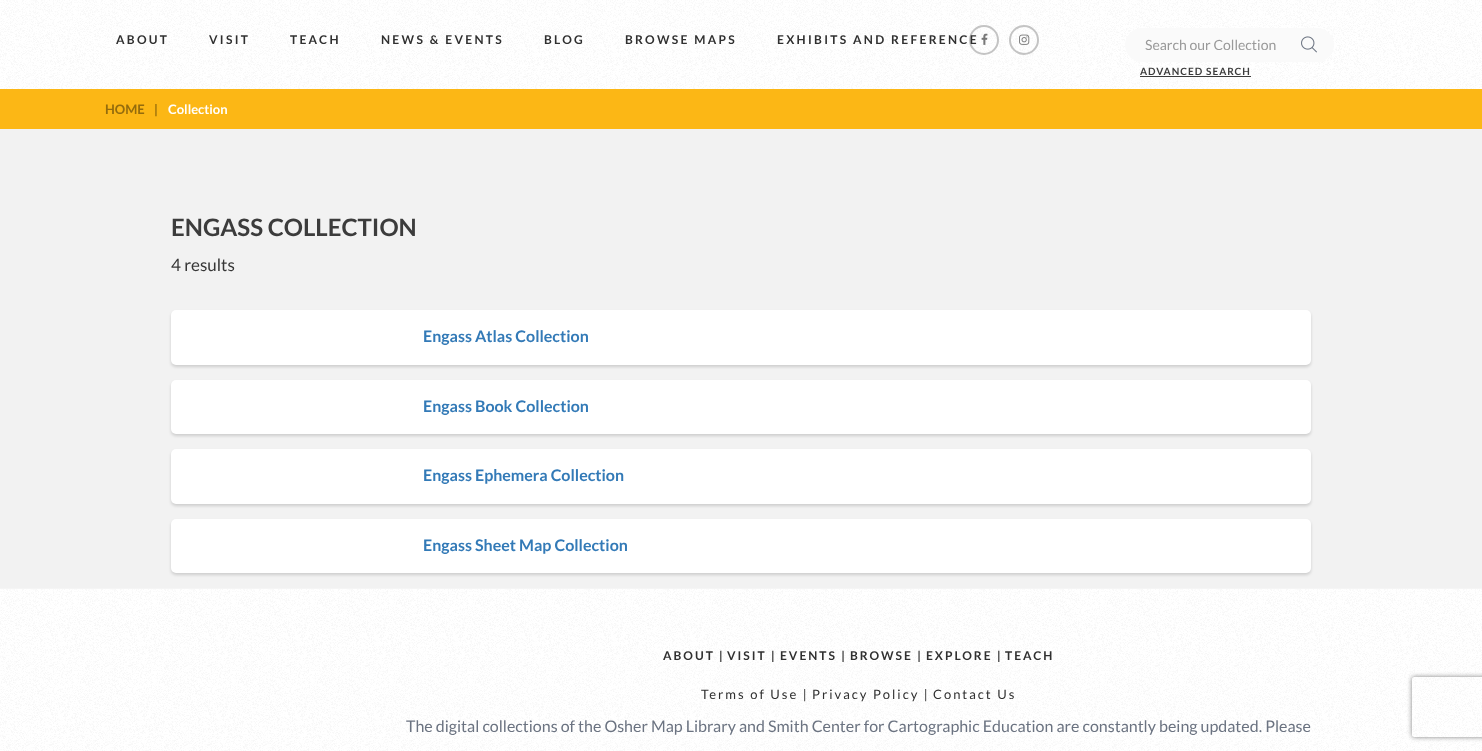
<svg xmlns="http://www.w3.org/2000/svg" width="1482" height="751">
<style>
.a{font:bold 12px Lato;letter-spacing:2.3px;fill:#303030}
.b{font:14px Lato;fill:#999}
.c{font:bold 10px Lato;letter-spacing:1px;fill:#3c3c3c}
.d{font:bold 13px Lato;fill:#946c0d}
.e{font:bold 13px Lato;fill:#fff}
.f{font:bold 24px Lato;fill:#3c3c3c}
.g{font:17px Lato;fill:#363636}
.h{font:bold 16px Lato;fill:#337ab7}
.i{font:bold 12px Lato;letter-spacing:2px;fill:#303030}
.j{font:13px Lato;letter-spacing:2px;fill:#303030}
.k{font:16px Lato;fill:#6b7381}
</style>
<defs>
<clipPath id="clip1"><path d="M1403 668h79v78h-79zm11 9h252c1 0 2 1 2 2v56c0 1-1 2-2 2h-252c-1 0-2-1-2-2v-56c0-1 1-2 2-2z" clip-rule="evenodd"/></clipPath>
</defs>
<rect width="100%" height="100%" fill="#f2f2f2"/>
<image href="1.png" x="0" y="0" width="1482" height="89"/>
<circle fill="none" stroke="#c4c4c4" stroke-width="2" cx="984" cy="40" r="14"/>
<image href="2.png" x="981" y="33" width="7" height="12"/>
<circle fill="none" stroke="#c4c4c4" stroke-width="2" cx="1024" cy="40" r="14"/>
<image href="3.png" x="1019" y="34" width="11" height="11"/>
<rect fill="#fafafa" x="1125" y="28" width="209" height="34" rx="17"/>
<image href="4.png" x="1301" y="36" width="16" height="17"/>
<path fill="#3c3c3c" d="M1140 76h111v1H1140z"/>
<path fill="#fcb715" d="M0 89h1482v40H0z"/>
<rect fill="#00000026" filter="blur(1.5px)" x="171" y="312" width="1140" height="55" rx="5"/>
<rect fill="#fff" x="171" y="310" width="1140" height="55" rx="5"/>
<rect fill="#00000026" filter="blur(1.5px)" x="171" y="382" width="1140" height="54" rx="5"/>
<rect fill="#fff" x="171" y="380" width="1140" height="54" rx="5"/>
<rect fill="#00000026" filter="blur(1.5px)" x="171" y="451" width="1140" height="55" rx="5"/>
<rect fill="#fff" x="171" y="449" width="1140" height="55" rx="5"/>
<rect fill="#00000026" filter="blur(1.5px)" x="171" y="521" width="1140" height="54" rx="5"/>
<rect fill="#fff" x="171" y="519" width="1140" height="54" rx="5"/>
<image href="5.png" x="0" y="589" width="1482" height="162"/>
<path fill="#f5f5f5" d="M0 588h1482v1H0z"/>
<g clip-path="url(#clip1)">
<rect fill="#808080" filter="blur(2.5px)" x="1412" y="677" width="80" height="60" rx="2"/>
</g>
<text class="a" x="116" y="44">ABOUT</text>
<text class="a" x="209" y="44">VISIT</text>
<text class="a" x="290" y="44">TEACH</text>
<text class="a" x="381" y="44">NEWS &amp; EVENTS</text>
<text class="a" x="544" y="44">BLOG</text>
<text class="a" x="625" y="44">BROWSE MAPS</text>
<text class="a" x="777" y="44">EXHIBITS AND REFERENCE</text>
<text class="b" x="1145" y="50">Search our Collection</text>
<text class="c" x="1140" y="75">ADVANCED SEARCH</text>
<text class="d" x="105" y="114">HOME</text>
<text class="d" x="154" y="114">|</text>
<text class="e" x="168" y="114">Collection</text>
<text class="f" x="171" y="236">ENGASS COLLECTION</text>
<text class="g" x="171" y="271">4 results</text>
<text class="h" x="423" y="342">Engass Atlas Collection</text>
<text class="h" x="423" y="412">Engass Book Collection</text>
<text class="h" x="423" y="481">Engass Ephemera Collection</text>
<text class="h" x="423" y="551">Engass Sheet Map Collection</text>
<text class="i" x="663" y="660">ABOUT |</text>
<text class="i" x="727" y="660">VISIT |</text>
<text class="i" x="780" y="660">EVENTS |</text>
<text class="i" x="850" y="660">BROWSE |</text>
<text class="i" x="926" y="660">EXPLORE |</text>
<text class="i" x="1005" y="660">TEACH</text>
<text class="j" x="701" y="699">Terms of Use |</text>
<text class="j" x="812" y="699">Privacy Policy |</text>
<text class="j" x="933" y="699">Contact Us</text>
<text class="k" x="406" y="732">The digital collections of the Osher Map Library and Smith Center for Cartographic Education are constantly being updated. Please</text>
</svg>
